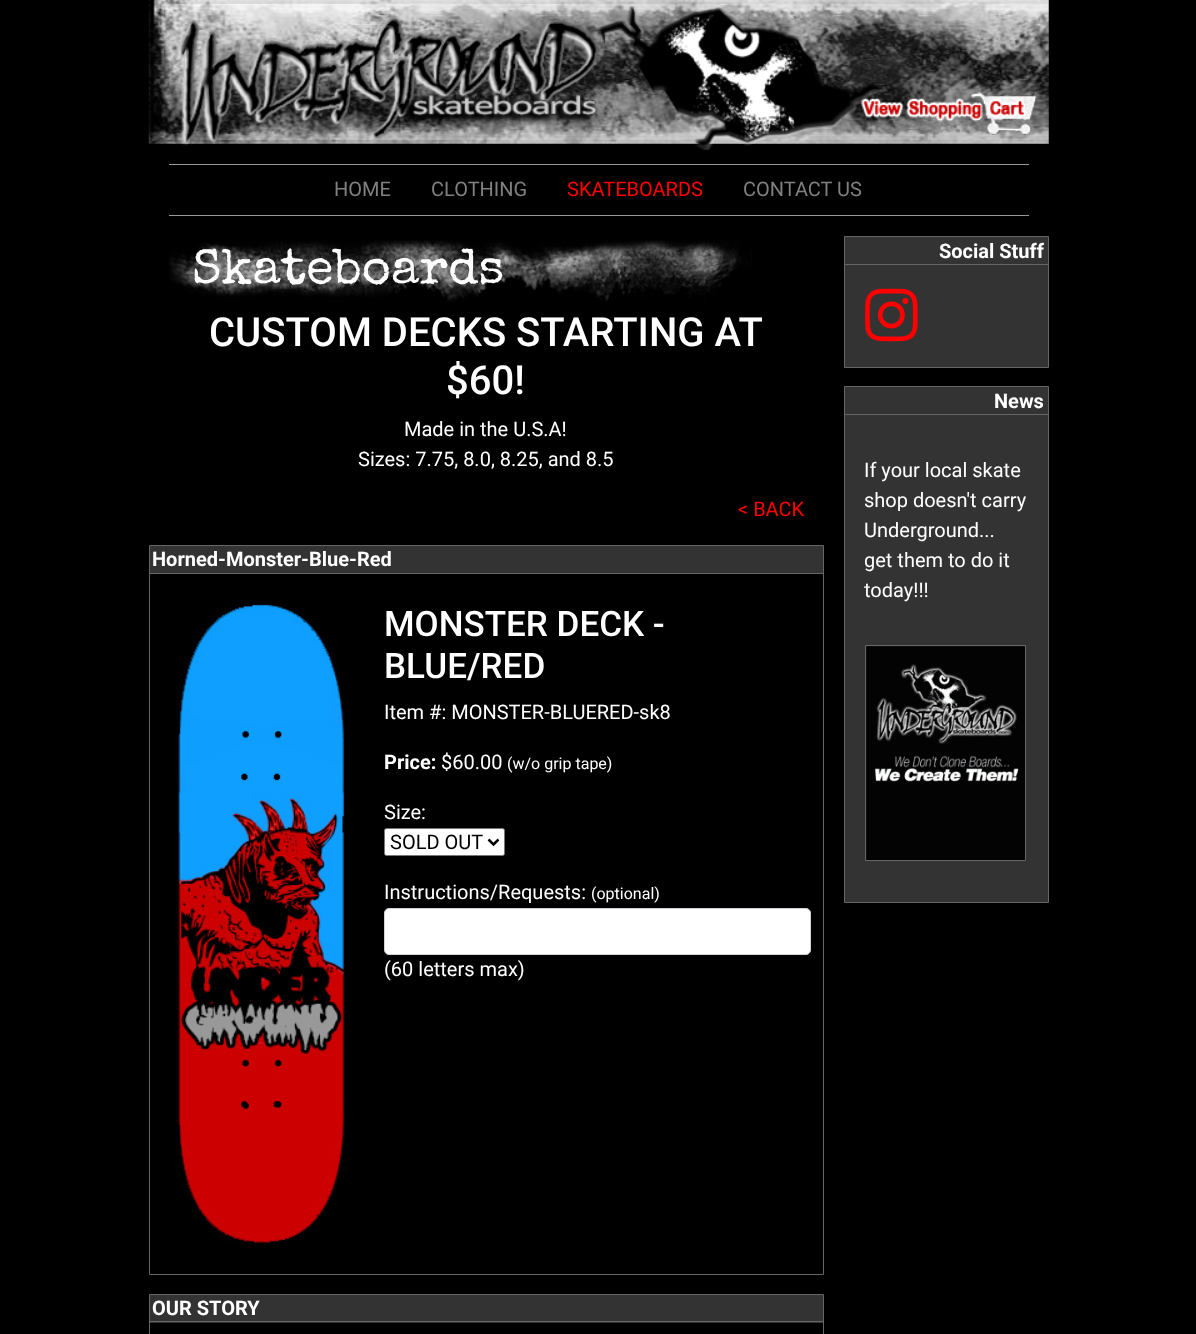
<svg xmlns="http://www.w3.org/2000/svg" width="1196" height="1334">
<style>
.a{font:20px Roboto;fill:#808080}
.b{font:20px Roboto;fill:#f00}
.c{font:50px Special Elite;fill:#fff}
.d{font:500 40px Roboto;fill:#fff}
.e{font:20px Roboto;fill:#fff}
.f{font:bold 20px Roboto;fill:#fff}
.g{font:500 35px Roboto;fill:#fff}
.h{font:16px Roboto;fill:#fff}
.i{font:20px Roboto;fill:#000}
</style>
<rect width="100%" height="100%" fill="#000"/>
<image href="1.png" x="148" y="0" width="901" height="144"/>
<image href="2.png" x="176" y="6" width="711" height="144"/>
<image href="3.png" x="861" y="91" width="176" height="44"/>
<path fill="#999" d="M169 164h860v1H169z"/>
<path fill="#999" d="M169 215h860v1H169z"/>
<image href="4.png" x="169" y="240" width="583" height="62"/>
<path fill="none" stroke="#666" d="M149.5 545.5h674v729H149.5z"/>
<path fill="#333" d="M150 546h673v27H150z"/>
<path fill="#666" d="M150 573h673v1H150z"/>
<image href="5.png" x="174" y="604" width="177" height="640"/>
<rect fill="#fff" stroke="#767676" x="384.5" y="828.5" width="120" height="27" rx="2"/>
<path fill="none" stroke="#000" stroke-width="2.5" d="M488.5 839.5l5 5l5-5"/>
<rect fill="#fff" stroke="#ced4da" x="384.5" y="908.5" width="426" height="46" rx="4.5"/>
<path fill="none" stroke="#666" d="M149.5 1294.5h674v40H149.5z"/>
<path fill="#333" d="M150 1295h673v28H150z"/>
<path fill="#666" d="M150 1321h673v1H150z"/>
<path fill="#333" stroke="#666" d="M844.5 236.5h204v131H844.5z"/>
<path fill="#666" d="M845 264h203v1H845z"/>
<image href="6.png" x="865" y="288" width="53" height="54"/>
<path fill="#333" stroke="#666" d="M844.5 386.5h204v516H844.5z"/>
<path fill="#666" d="M845 414h203v1H845z"/>
<path fill="none" stroke="#666" d="M865.5 645.5h160v215H865.5z"/>
<image href="7.png" x="866" y="646" width="159" height="214"/>
<text class="a" x="334" y="196">HOME</text>
<text class="a" x="431" y="196">CLOTHING</text>
<text class="b" x="567" y="196">SKATEBOARDS</text>
<text class="a" x="743" y="196">CONTACT US</text>
<text class="c" x="192" y="283">Skateboards</text>
<text class="d" x="209" y="346">CUSTOM DECKS STARTING AT</text>
<text class="d" x="446" y="394">$60!</text>
<text class="e" x="404" y="436">Made in the U.S.A!</text>
<text class="e" x="358" y="466">Sizes: 7.75, 8.0, 8.25, and 8.5</text>
<text class="b" x="738" y="516">&lt; BACK</text>
<text class="f" x="152" y="566">Horned-Monster-Blue-Red</text>
<text class="g" x="384" y="636">MONSTER DECK -</text>
<text class="g" x="384" y="678">BLUE/RED</text>
<text class="e" x="384" y="719">Item #: MONSTER-BLUERED-sk8</text>
<text class="f" x="384" y="769">Price:</text>
<text class="e" x="441" y="769">$60.00</text>
<text class="h" x="507" y="769">(w/o grip tape)</text>
<text class="e" x="384" y="819">Size:</text>
<text class="i" x="390" y="849">SOLD OUT</text>
<text class="e" x="384" y="899">Instructions/Requests:</text>
<text class="h" x="591" y="899">(optional)</text>
<text class="e" x="384" y="976">(60 letters max)</text>
<text class="f" x="152" y="1315">OUR STORY</text>
<text class="f" x="939" y="258">Social Stuff</text>
<text class="f" x="994" y="408">News</text>
<text class="e" x="864" y="477">If your local skate</text>
<text class="e" x="864" y="507">shop doesn't carry</text>
<text class="e" x="864" y="537">Underground...</text>
<text class="e" x="864" y="567">get them to do it</text>
<text class="e" x="864" y="597">today!!!</text>
</svg>
